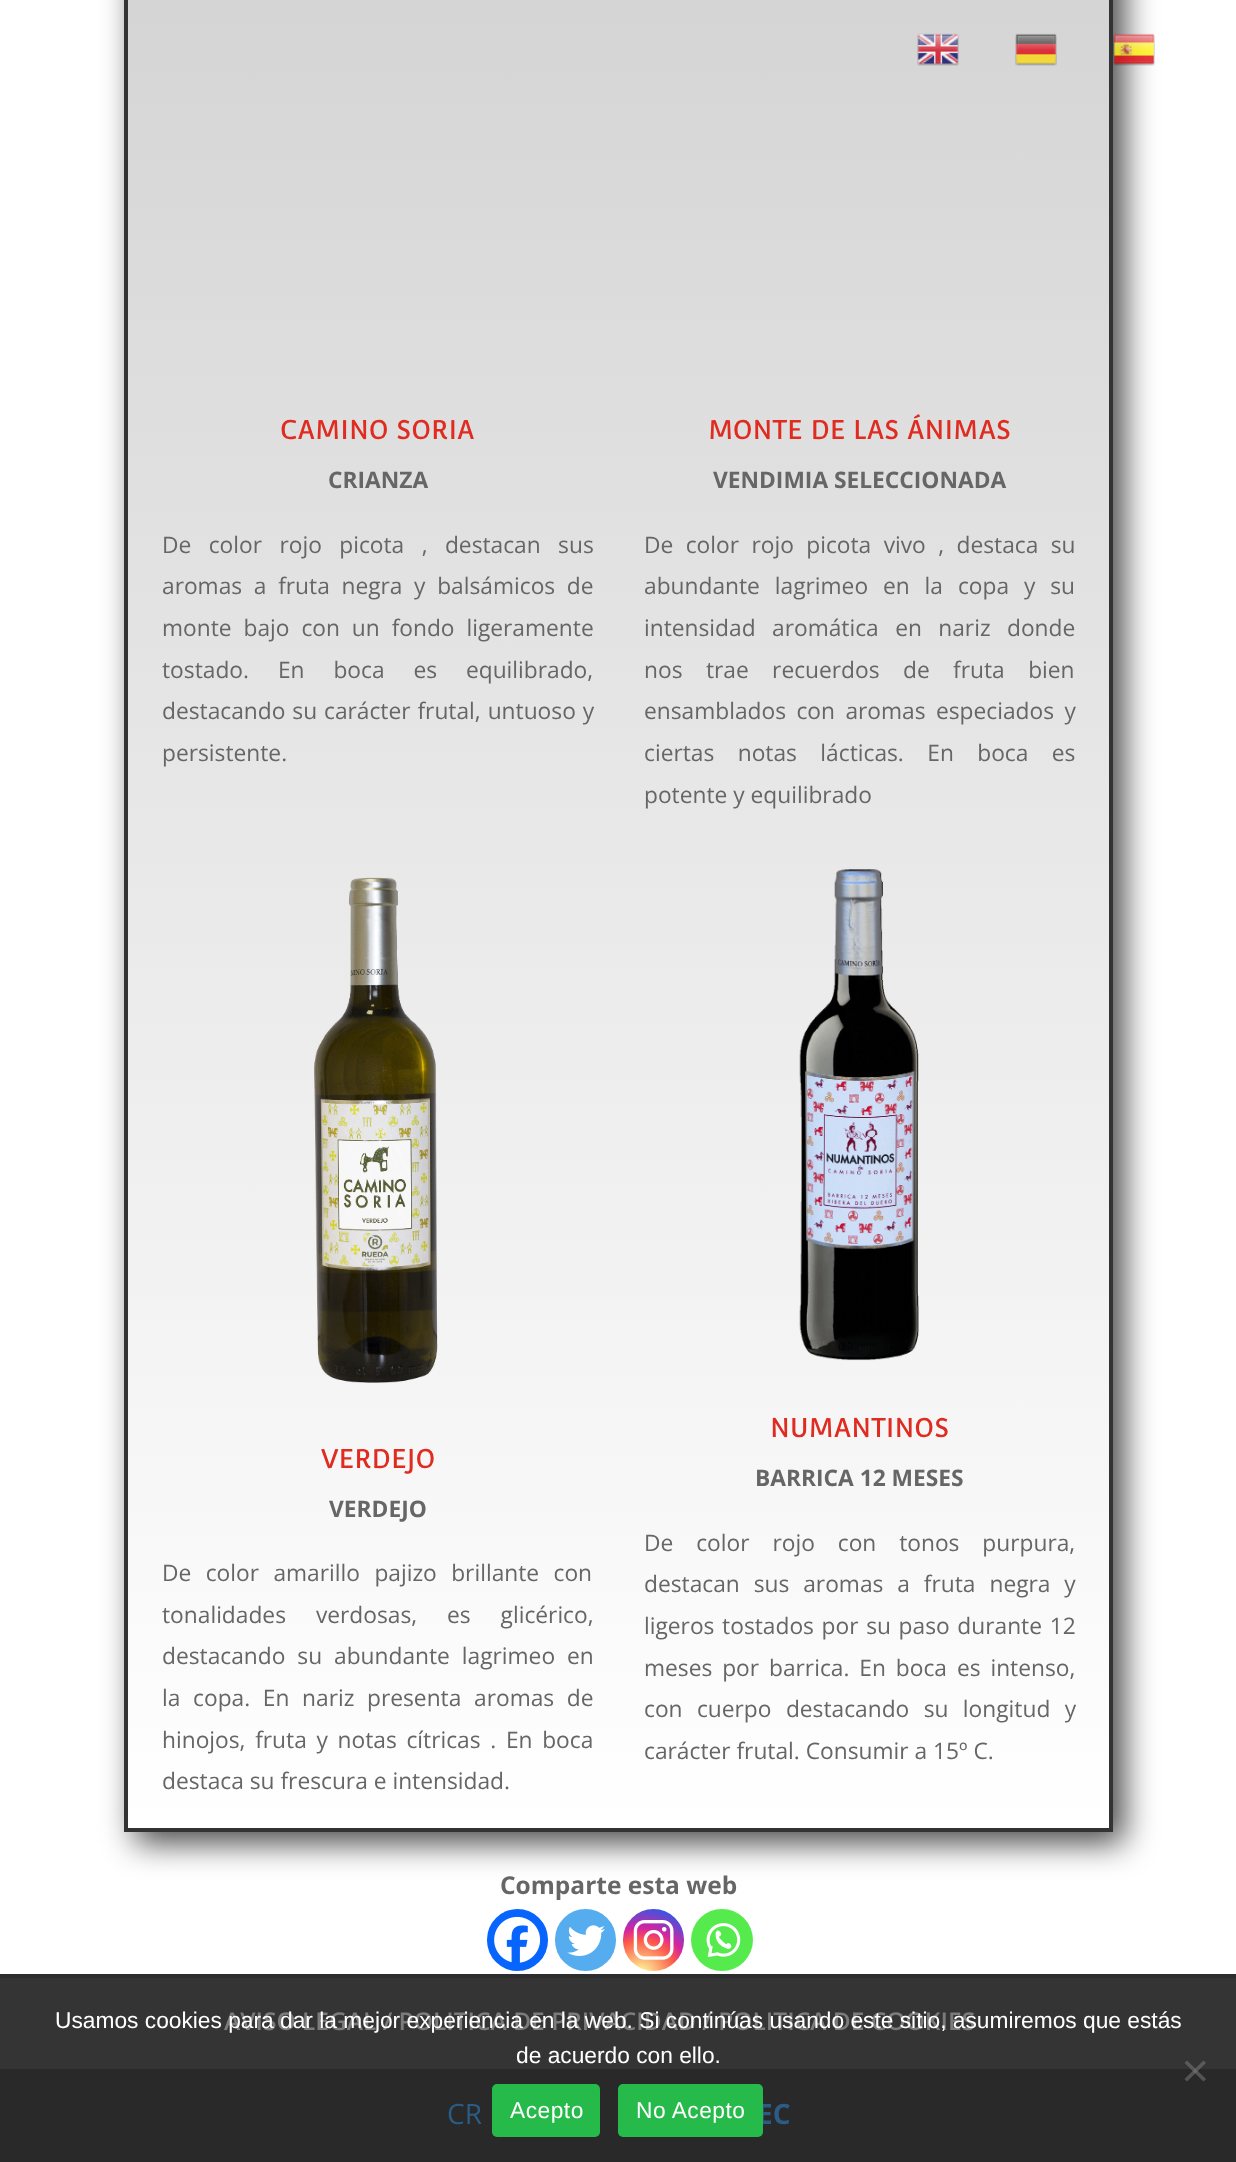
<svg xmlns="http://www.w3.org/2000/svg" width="1236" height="2162">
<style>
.a{font:26.25px Convergence;fill:#e02b20}
.b{font:bold 22.75px Open Sans;fill:#666}
.c{font:22.75px Open Sans;fill:#666}
.d{font:bold 24.5px Open Sans;fill:#666}
.e{font:600 24.5px Open Sans;fill:#7b7b7b}
.f{font:28px Open Sans;fill:#2a5c86}
.g{font:bold 28px Open Sans;fill:#2a5c86}
.h{font:22.75px Liberation Sans;fill:#fff}
.i{font:22.75px Liberation Sans;letter-spacing:0.5px;fill:#fff}
</style>
<defs>
<linearGradient id="g1" gradientUnits="userSpaceOnUse" x1="619" y1="-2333" x2="619" y2="1829"><stop offset="0" stop-color="#9f9f9f"/><stop offset="1" stop-color="#fff"/></linearGradient>
<radialGradient id="g2" gradientUnits="userSpaceOnUse" cx="641" cy="1975" r="78"><stop offset="0" stop-color="#fdf497"/><stop offset="0.05" stop-color="#fdf497"/><stop offset="0.45" stop-color="#fd5949"/><stop offset="0.6" stop-color="#d6249f"/><stop offset="0.9" stop-color="#285aeb"/></radialGradient>
</defs>
<rect width="100%" height="100%" fill="#fff"/>
<path fill="#000000b8" filter="blur(16px)" d="M135 -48h989v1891H135z"/>
<path fill="url(#g1)" d="M128 0h981v1828H128z"/>
<path fill="none" stroke="#333" stroke-width="4" d="M126 -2h985v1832H126z"/>
<image href="1.png" x="917" y="33" width="42" height="33"/>
<image href="2.png" x="1015" y="33" width="42" height="33"/>
<image href="3.png" x="1113" y="33" width="42" height="33"/>
<image href="4.png" x="314" y="877" width="124" height="506"/>
<image href="5.png" x="799" y="869" width="120" height="492"/>
<rect fill="#0765fe" x="487" y="1909" width="61" height="62" rx="30.5"/>
<image href="6.png" x="494" y="1916" width="47" height="47"/>
<rect fill="#55acee" x="555" y="1909" width="61" height="62" rx="30.5"/>
<image href="7.png" x="567" y="1925" width="38" height="31"/>
<rect fill="url(#g2)" x="623" y="1909" width="61" height="62" rx="30.5"/>
<image href="8.png" x="633" y="1920" width="41" height="40"/>
<circle fill="#55eb4c" cx="722" cy="1940" r="31"/>
<image href="9.png" x="706" y="1923" width="35" height="34"/>
<path fill="#2d2d2d" d="M0 1974h1236v4H0z"/>
<path fill="#343434" d="M0 1978h1236v91H0z"/>
<path fill="#292929" d="M0 2069h1236v93H0z"/>
<path fill="#80808080" d="M1203.5 2060.5l2.5 2.5l-19 18.5l-2.5-2.5z"/>
<path fill="#80808080" d="M1184.5 2063l2.5-2.5l19 18.5l-2.5 2.5z"/>
<rect fill="#25ba4a" x="492" y="2084" width="108" height="53" rx="5"/>
<text class="a" x="280" y="439">CAMINO SORIA</text>
<text class="b" x="328" y="488">CRIANZA</text>
<text class="c" x="162" y="553" word-spacing="11.5">De color rojo picota , destacan sus</text>
<text class="c" x="162" y="594" word-spacing="5.75">aromas a fruta negra y balsámicos de</text>
<text class="c" x="162" y="636" word-spacing="6">monte bajo con un fondo ligeramente</text>
<text class="c" x="162" y="678" word-spacing="23">tostado. En boca es equilibrado,</text>
<text class="c" x="162" y="719" word-spacing="1">destacando su carácter frutal, untuoso y</text>
<text class="c" x="162" y="761">persistente.</text>
<text class="a" x="708" y="439">MONTE DE LAS ÁNIMAS</text>
<text class="b" x="713" y="488">VENDIMIA SELECCIONADA</text>
<text class="c" x="644" y="553" word-spacing="6.5">De color rojo picota vivo , destaca su</text>
<text class="c" x="644" y="594" word-spacing="9">abundante lagrimeo en la copa y su</text>
<text class="c" x="644" y="636" word-spacing="10.5">intensidad aromática en nariz donde</text>
<text class="c" x="644" y="678" word-spacing="17.5">nos trae recuerdos de fruta bien</text>
<text class="c" x="644" y="719" word-spacing="4.5">ensamblados con aromas especiados y</text>
<text class="c" x="644" y="761" word-spacing="17.5">ciertas notas lácticas. En boca es</text>
<text class="c" x="644" y="803">potente y equilibrado</text>
<text class="a" x="321" y="1468">VERDEJO</text>
<text class="b" x="329" y="1517">VERDEJO</text>
<text class="c" x="162" y="1581" word-spacing="8.5">De color amarillo pajizo brillante con</text>
<text class="c" x="162" y="1623" word-spacing="24">tonalidades verdosas, es glicérico,</text>
<text class="c" x="162" y="1664" word-spacing="6">destacando su abundante lagrimeo en</text>
<text class="c" x="162" y="1706" word-spacing="6.75">la copa. En nariz presenta aromas de</text>
<text class="c" x="162" y="1748" word-spacing="3.75">hinojos, fruta y notas cítricas . En boca</text>
<text class="c" x="162" y="1789">destaca su frescura e intensidad.</text>
<text class="a" x="770" y="1437">NUMANTINOS</text>
<text class="b" x="755" y="1486">BARRICA 12 MESES</text>
<text class="c" x="644" y="1551" word-spacing="17">De color rojo con tonos purpura,</text>
<text class="c" x="644" y="1592" word-spacing="8">destacan sus aromas a fruta negra y</text>
<text class="c" x="644" y="1634" word-spacing="1.75">ligeros tostados por su paso durante 12</text>
<text class="c" x="644" y="1676" word-spacing="4">meses por barrica. En boca es intenso,</text>
<text class="c" x="644" y="1717" word-spacing="8.5">con cuerpo destacando su longitud y</text>
<text class="c" x="644" y="1759">carácter frutal. Consumir a 15º C.</text>
<text class="d" x="500" y="1894">Comparte esta web</text>
<text class="e" x="224" y="2030">AVISO LEGAL / POLITICA DE PRIVACIDAD / POLITICA DE COOKIES</text>
<text class="f" x="447" y="2124">CR</text>
<text class="g" x="757" y="2124">EC</text>
<text class="h" x="55" y="2028">Usamos cookies para dar la mejor experiencia en la web. Si continúas usando este sitio, asumiremos que estás</text>
<text class="h" x="516" y="2063">de acuerdo con ello.</text>
<text class="i" x="510" y="2118">Acepto</text>
<rect fill="#25ba4a" x="618" y="2084" width="145" height="53" rx="5"/>
<text class="i" x="636" y="2118">No Acepto</text>
</svg>
